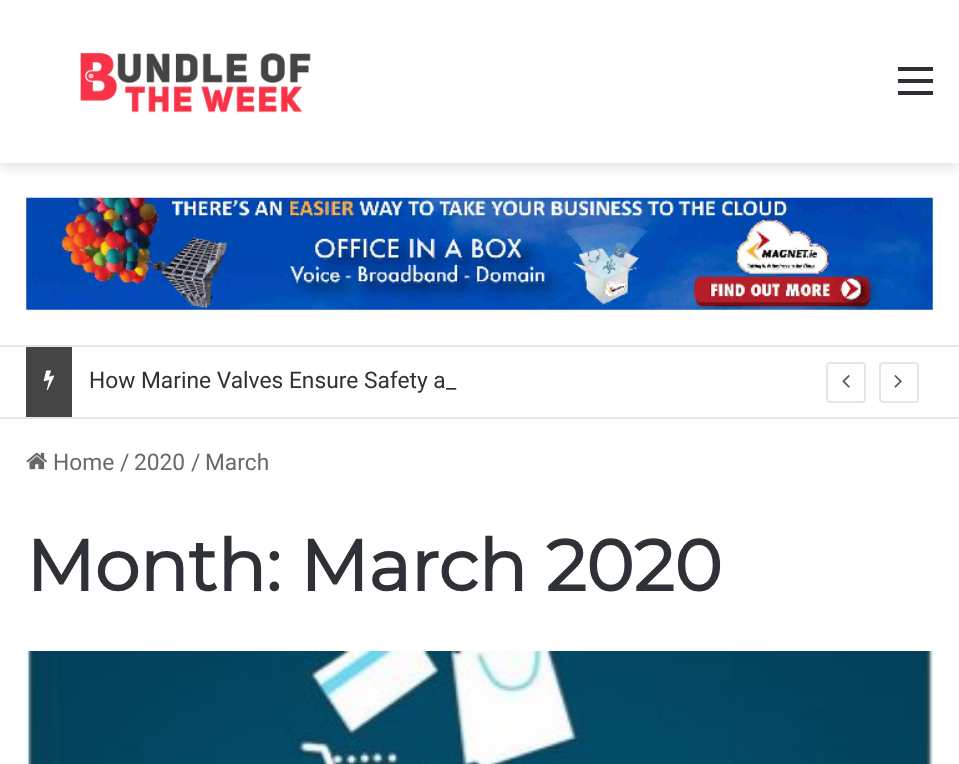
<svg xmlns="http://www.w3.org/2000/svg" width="959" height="764">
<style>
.a{font:22.75px Roboto;fill:#2e3136}
.b{font:22.75px Roboto;fill:#686868}
.c{font:bold 71.75px Montserrat;fill:#2e3136}
</style>
<rect width="100%" height="100%" fill="#fff"/>
<path fill="#0000001a" filter="blur(6px)" d="M0 5h959v163H0z"/>
<path fill="#fff" d="M0 0h959v163H0z"/>
<image href="1.png" x="80" y="53" width="231" height="60"/>
<path fill="#2c2f34" d="M898 79h35v4H898z"/>
<path fill="#2c2f34" d="M898 67h35v4H898z"/>
<path fill="#2c2f34" d="M898 91h35v4H898z"/>
<image href="2.png" x="26" y="197" width="907" height="113"/>
<path fill="#e6e6e6" d="M0 345h959v2H0z"/>
<path fill="#e6e6e6" d="M0 417h959v2H0z"/>
<path fill="#454545" d="M26 347h46v70H26z"/>
<image href="3.png" x="43" y="370" width="12" height="20"/>
<rect fill="none" stroke="#e6e6e6" stroke-width="2" x="827" y="363" width="38" height="39" rx="3"/>
<image href="4.png" x="842" y="375" width="8" height="13"/>
<rect fill="none" stroke="#e6e6e6" stroke-width="2" x="880" y="363" width="38" height="39" rx="3"/>
<image href="5.png" x="894" y="375" width="8" height="13"/>
<image href="6.png" x="26" y="452" width="21" height="18"/>
<image href="7.png" x="26" y="651" width="907" height="113"/>
<text class="a" x="89" y="388">How Marine Valves Ensure Safety a</text>
<text class="a" x="446" y="388">_</text>
<text class="b" x="53" y="470">Home</text>
<text class="b" x="120" y="470">/</text>
<text class="b" x="134" y="470">2020</text>
<text class="b" x="191" y="470">/</text>
<text class="b" x="205" y="470">March</text>
<text class="c" x="26" y="591">Month: March 2020</text>
</svg>
